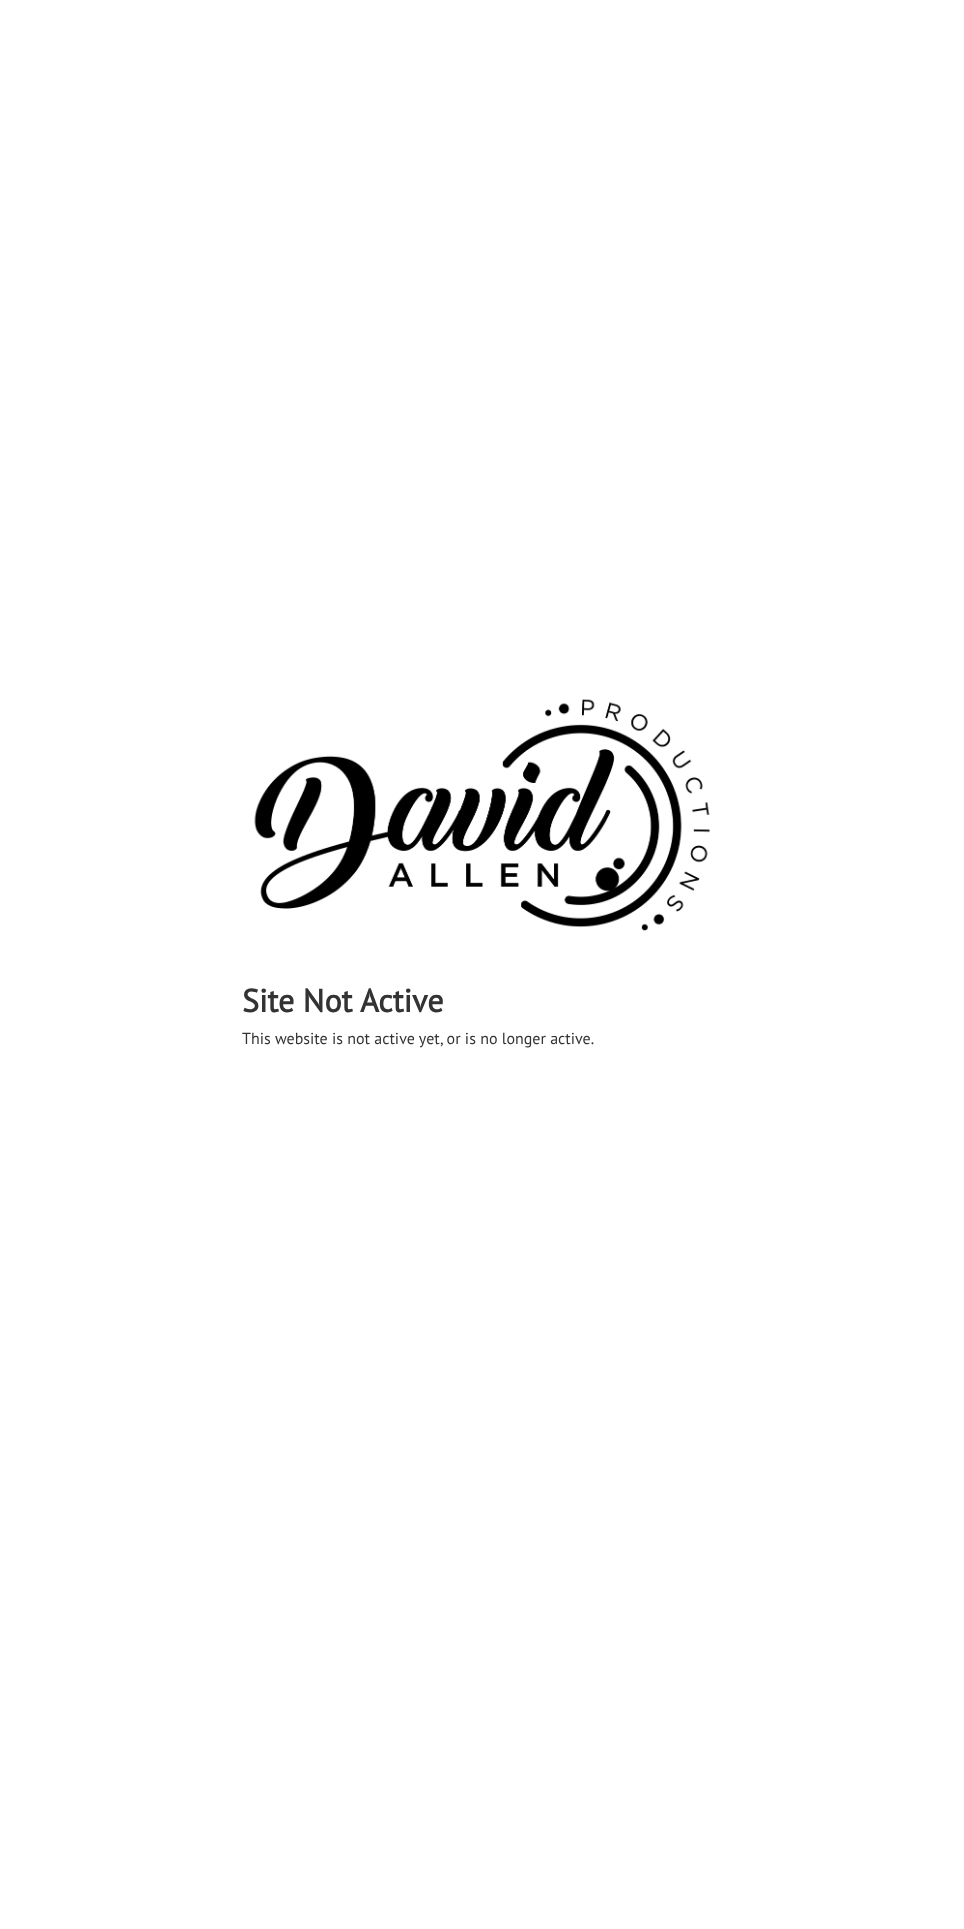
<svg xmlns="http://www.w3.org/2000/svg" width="964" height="1929">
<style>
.a{font:bold 32px PT Sans;fill:#333}
.b{font:16px PT Sans;fill:#333}
</style>
<rect width="100%" height="100%" fill="#fff"/>
<image href="1.png" x="254" y="699" width="456" height="232"/>
<text class="a" x="242" y="1012">Site Not Active</text>
<text class="b" x="242" y="1044">This website is not active yet, or is no longer active.</text>
</svg>
